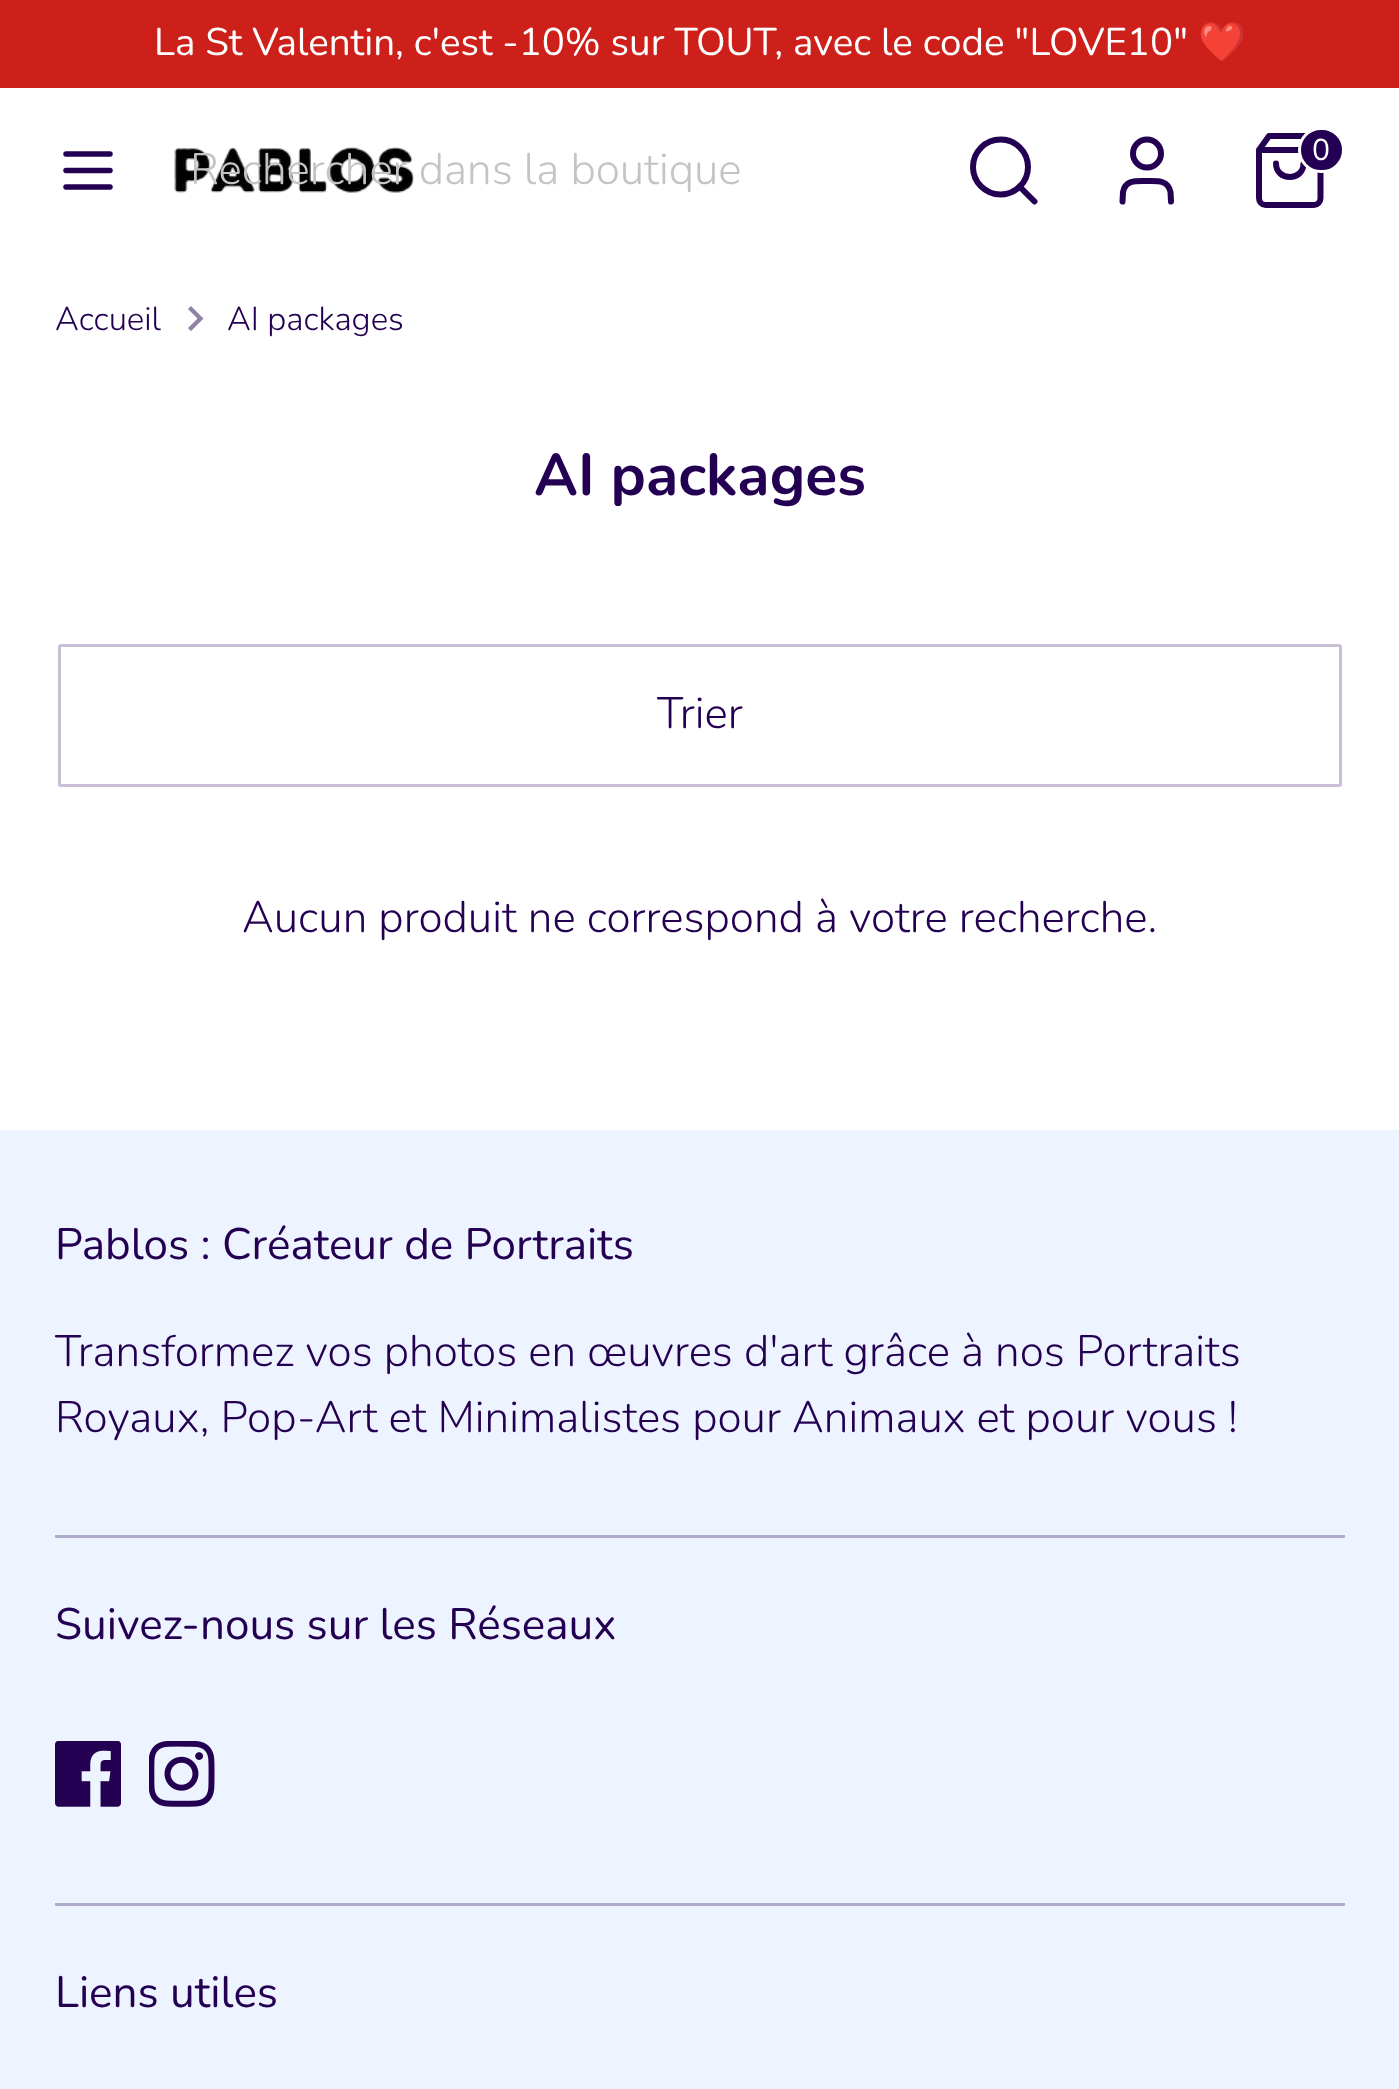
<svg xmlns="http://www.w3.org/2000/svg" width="1399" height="2089">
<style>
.a{font:38.5px Nunito;fill:#fff}
.b{font:38.5px Noto Color Emoji;fill:#fff}
.c{font:30px Nunito;fill:#fff}
.d{font:300 44px Nunito;fill:#c4c4c4}
.e{font:300 33px Nunito;fill:#230051}
.f{font:bold 59px Nunito;fill:#230051}
.g{font:300 44px Nunito;fill:#230051}
.h{font:44px Nunito;fill:#230051}
</style>
<rect width="100%" height="100%" fill="#fff"/>
<path fill="#cd201a" d="M0 0h1399v88H0z"/>
<circle fill="none" stroke="#230051" stroke-width="6" cx="1000.5" cy="167" r="27.5"/>
<path fill="none" stroke="#230051" stroke-width="6" stroke-linecap="round" stroke-linejoin="round" d="M1034.5 201.5l-15-15"/>
<path fill="none" stroke="#230051" stroke-width="6" stroke-linecap="round" stroke-linejoin="round" d="M1171 201.5l-.5-9.5c-2.5-12.5-14-11-23.5-11c-10 0-21.5-1.5-24 11l-.5 9.5"/>
<circle fill="none" stroke="#230051" stroke-width="6" cx="1147" cy="153.5" r="14"/>
<path fill="none" stroke="#230051" stroke-width="6" stroke-linecap="round" stroke-linejoin="round" d="M1269 136l-10 14v48c0 4 3 7 6.5 7h48.5c3.5 0 6.5-3 6.5-7v-48l-10-14zm-10 14h61.5"/>
<path fill="none" stroke="#230051" stroke-width="6" stroke-linecap="round" stroke-linejoin="round" d="M1303.5 163.5c0 18-27.5 18-27.5 0"/>
<rect fill="#230051" stroke="#fff" stroke-width="3" x="1299.5" y="128.5" width="44" height="43" rx="21.5"/>
<path fill="none" stroke="#230051" stroke-width="5.5" stroke-linecap="round" stroke-linejoin="round" d="M66 170.5h44m-44-16.5h44m-44 33h44"/>
<image href="1.png" x="174" y="147" width="240" height="46"/>
<path fill="#9180a8" d="M188 328l9.5-9.5l-9.5-9.5l3-3l12.5 12.5l-12.5 12.5z"/>
<rect fill="none" stroke="#c8bfd4" stroke-width="3" x="59.5" y="645.5" width="1281" height="140" rx="1.5"/>
<path fill="#eef4ff" d="M0 1130h1399v959H0z"/>
<path fill="#b1abcb" d="M55 1535h1290v3H55z"/>
<path fill="#b1abcb" d="M55 1903h1290v3H55z"/>
<image href="2.png" x="55" y="1741" width="66" height="66"/>
<image href="3.png" x="149" y="1741" width="66" height="66"/>
<text class="a" x="154" y="55">La St Valentin, c'est -10% sur TOUT, avec le code "LOVE10"</text>
<text class="b" x="1198" y="55">❤️</text>
<text class="c" x="1312" y="160">0</text>
<text class="d" x="190" y="184">Rechercher dans la boutique</text>
<text class="e" x="55" y="330">Accueil</text>
<text class="e" x="227" y="330">AI packages</text>
<text class="f" x="534" y="495">AI packages</text>
<text class="g" x="657" y="728">Trier</text>
<text class="g" x="242" y="932">Aucun produit ne correspond à votre recherche.</text>
<text class="h" x="55" y="1259">Pablos : Créateur de Portraits</text>
<text class="g" x="55" y="1366">Transformez vos photos en œuvres d'art grâce à nos Portraits</text>
<text class="g" x="55" y="1432">Royaux, Pop-Art et Minimalistes pour Animaux et pour vous !</text>
<text class="h" x="55" y="1639">Suivez-nous sur les Réseaux</text>
<text class="h" x="55" y="2007">Liens utiles</text>
</svg>
